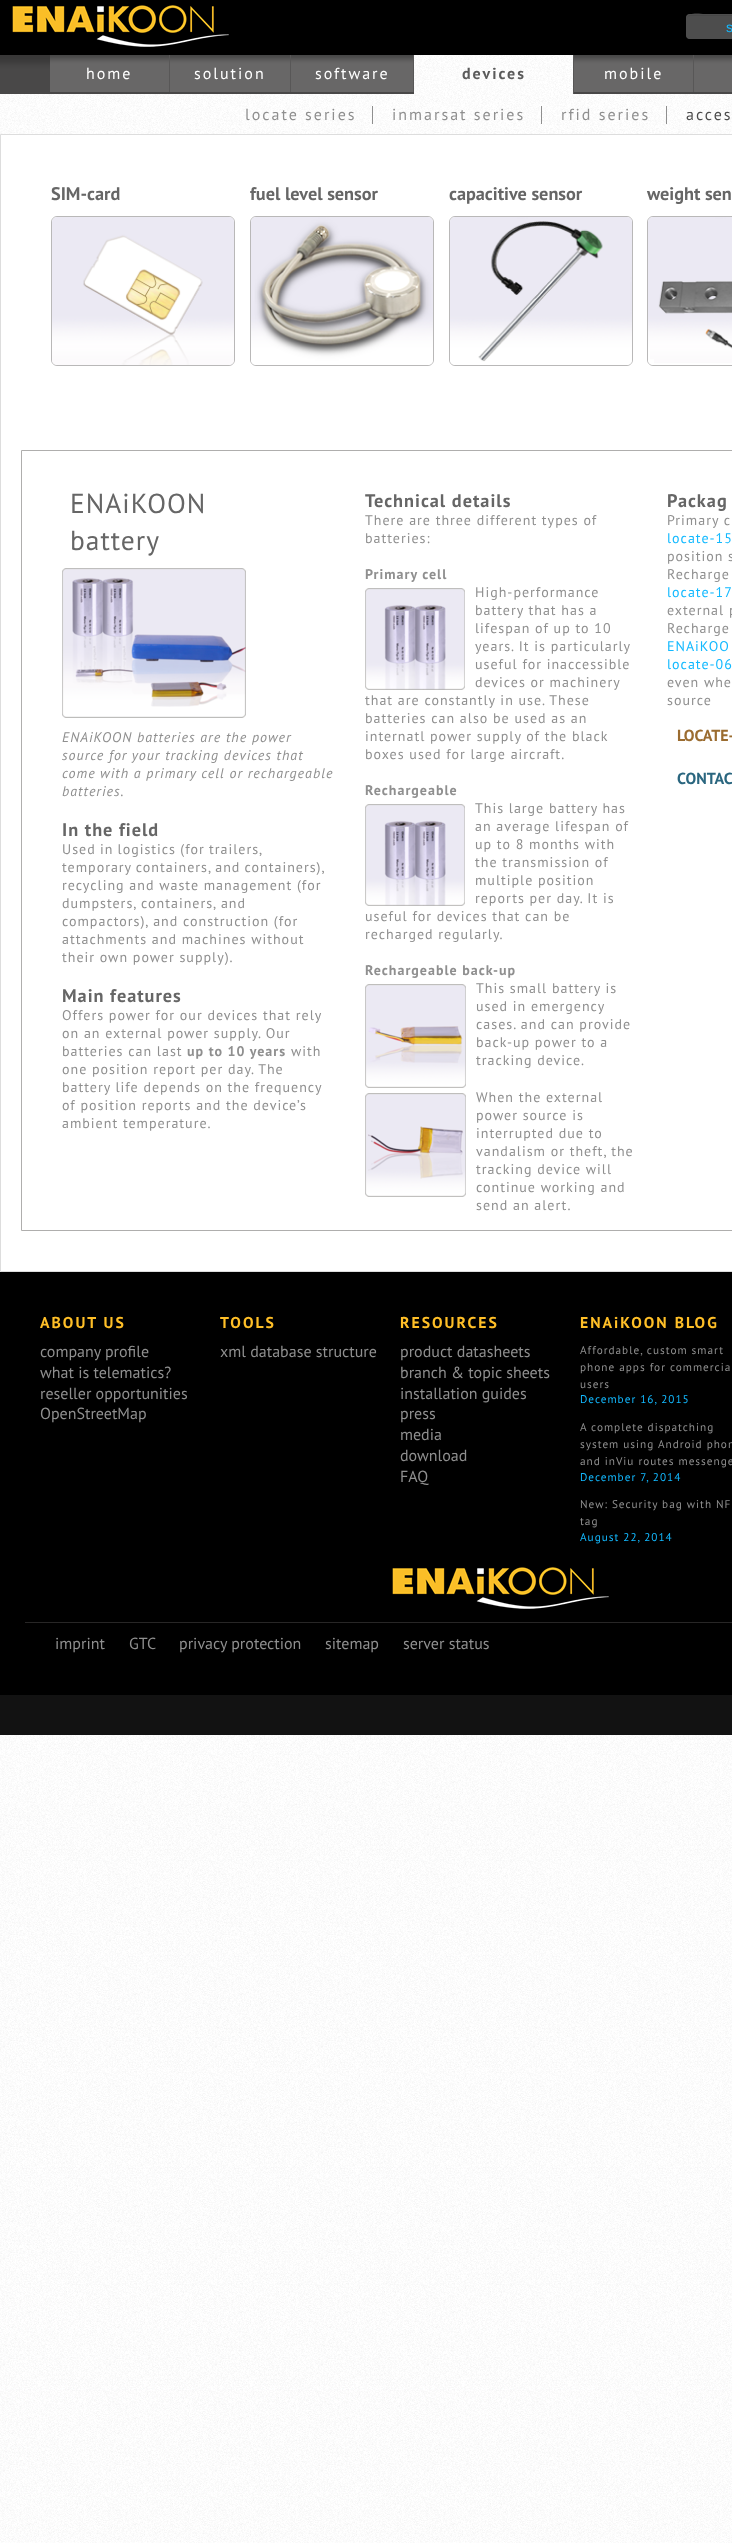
<svg xmlns="http://www.w3.org/2000/svg" width="732" height="2543">
<style>
.a{font:14px Liberation Sans;fill:#12b9ff}
.b{font:16px PT Sans;letter-spacing:2px;fill:#fff}
.c{font:bold 16px PT Sans;letter-spacing:2px;fill:#5b5b5b}
.d{font:16px PT Sans;letter-spacing:2px;fill:#8f8f8f}
.e{font:16px PT Sans;letter-spacing:2px;fill:#4c4c4c}
.f{font:bold 18.25px PT Sans;fill:#666}
.g{font:27.5px PT Sans;letter-spacing:1px;fill:#666}
.h{font:italic 14px PT Sans;letter-spacing:1px;fill:#8f8f8f}
.i{font:bold 18.25px PT Sans;letter-spacing:1px;fill:#666}
.j{font:14px PT Sans;letter-spacing:1px;fill:#8f8f8f}
.k{font:bold 14px PT Sans;letter-spacing:1px;fill:#8f8f8f}
.l{font:14px PT Sans;letter-spacing:1px;fill:#12b9ff}
.m{font:bold 16px PT Sans;fill:#9b6c30}
.n{font:bold 16px PT Sans;fill:#2a667f}
.o{font:bold 15.75px PT Sans;letter-spacing:2px;fill:#ffbf27}
.p{font:16px PT Sans;fill:#8f8f8f}
.q{font:11.25px PT Sans;letter-spacing:1px;fill:#8f8f8f}
.r{font:11.25px PT Sans;letter-spacing:1px;fill:#12b9ff}
</style>
<rect width="100%" height="100%" fill="#fff"/>
<image href="1.png" x="0" y="94" width="732" height="2449"/>
<image href="3.png" x="0" y="55" width="732" height="39"/>
<path fill="#585757" d="M169 53h1v39H169z"/>
<path fill="#585757" d="M290 53h1v39H290z"/>
<path fill="#585757" d="M573 53h1v41H573z"/>
<path fill="#585757" d="M413 53h1v39H413z"/>
<path fill="#585757" d="M693 53h1v39H693z"/>
<path fill="#000" d="M0 0h732v55H0z"/>
<image href="2.png" x="12" y="5" width="217" height="42"/>
<rect fill="#4d4d4d" x="686" y="14" width="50" height="25" rx="4"/>
<path fill="#474747" d="M690 16h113c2 0 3 1 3 3c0-2-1-4-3-4h-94c-1 0-22-5-22 4c0-2 1-3 3-3z"/>
<rect fill="none" stroke="#4d4d4d" x="686.5" y="14.5" width="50" height="24" rx="3.5"/>
<image href="4.png" x="50" y="55" width="119" height="37"/>
<image href="5.png" x="170" y="55" width="120" height="37"/>
<image href="6.png" x="694" y="55" width="38" height="37"/>
<image href="7.png" x="414" y="55" width="159" height="39"/>
<path fill="#8f8f8f" d="M372 106h1v18H372z"/>
<path fill="#8f8f8f" d="M541 106h1v18H541z"/>
<path fill="#8f8f8f" d="M666 106h1v18H666z"/>
<image href="8.png" x="291" y="55" width="122" height="37"/>
<image href="4.png" x="574" y="55" width="119" height="37"/>
<path fill="#fff" stroke="#ddd" d="M0.5 134.5h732v1137H0.5z"/>
<rect fill="none" stroke="#b9b8b8" x="51.5" y="216.5" width="183" height="149" rx="5.5"/>
<image href="9.png" x="52" y="217" width="182" height="148"/>
<rect fill="none" stroke="#b9b8b8" x="250.5" y="216.5" width="183" height="149" rx="5.5"/>
<image href="10.png" x="251" y="217" width="182" height="148"/>
<rect fill="none" stroke="#b9b8b8" x="449.5" y="216.5" width="183" height="149" rx="5.5"/>
<image href="11.png" x="450" y="217" width="182" height="148"/>
<rect fill="none" stroke="#b9b8b8" x="647.5" y="216.5" width="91" height="149" rx="5.5"/>
<image href="12.png" x="648" y="217" width="84" height="148"/>
<path fill="none" stroke="#afaead" d="M21.5 450.5h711v780H21.5z"/>
<image href="13.png" x="62" y="568" width="184" height="150"/>
<image href="14.png" x="365" y="588" width="100" height="102"/>
<image href="14.png" x="365" y="804" width="100" height="102"/>
<image href="15.png" x="365" y="984" width="101" height="104"/>
<image href="16.png" x="365" y="1093" width="101" height="104"/>
<path fill="#121212" d="M0 1695h732v40H0z"/>
<path fill="#000" d="M0 1272h732v423H0z"/>
<path fill="#272626" d="M25 1622h707v1H25z"/>
<image href="2.png" x="392" y="1567" width="217" height="42"/>
<text class="a" x="726" y="32">s</text>
<text class="b" x="86" y="79">home</text>
<text class="b" x="194" y="79">solution</text>
<text class="c" x="462" y="79">devices</text>
<text class="d" x="245" y="120">locate series</text>
<text class="d" x="392" y="120">inmarsat series</text>
<text class="d" x="561" y="120">rfid series</text>
<text class="e" x="686" y="120">acces</text>
<text class="b" x="315" y="79">software</text>
<text class="b" x="604" y="79">mobile</text>
<text class="f" x="51" y="200">SIM-card</text>
<text class="f" x="250" y="200">fuel level sensor</text>
<text class="f" x="449" y="200">capacitive sensor</text>
<text class="f" x="647" y="200">weight sen</text>
<text class="g" x="70" y="513">ENAiKOON</text>
<text class="g" x="70" y="550">battery</text>
<text class="h" x="62" y="742">ENAiKOON batteries are the power</text>
<text class="h" x="62" y="760">source for your tracking devices that</text>
<text class="h" x="62" y="778">come with a primary cell or rechargeable</text>
<text class="h" x="62" y="796">batteries.</text>
<text class="i" x="62" y="836">In the field</text>
<text class="j" x="62" y="854" word-spacing="-0.5">Used in logistics (for trailers,</text>
<text class="j" x="62" y="872" word-spacing="-0.5">temporary containers, and containers),</text>
<text class="j" x="62" y="890">recycling and waste management (for</text>
<text class="j" x="62" y="908">dumpsters, containers, and</text>
<text class="j" x="62" y="926">compactors), and construction (for</text>
<text class="j" x="62" y="944">attachments and machines without</text>
<text class="j" x="62" y="962">their own power supply).</text>
<text class="i" x="62" y="1002">Main features</text>
<text class="j" x="62" y="1020">Offers power for our devices that rely</text>
<text class="j" x="62" y="1038">on an external power supply. Our</text>
<text class="j" x="62" y="1056">batteries can last</text>
<text class="k" x="187" y="1056">up to 10 years</text>
<text class="j" x="291" y="1056">with</text>
<text class="j" x="62" y="1074">one position report per day. The</text>
<text class="j" x="62" y="1092">battery life depends on the frequency</text>
<text class="j" x="62" y="1110">of position reports and the device’s</text>
<text class="j" x="62" y="1128">ambient temperature.</text>
<text class="i" x="365" y="507">Technical details</text>
<text class="j" x="365" y="525">There are three different types of</text>
<text class="j" x="365" y="543">batteries:</text>
<text class="k" x="365" y="579">Primary cell</text>
<text class="j" x="475" y="597">High-performance</text>
<text class="j" x="475" y="615">battery that has a</text>
<text class="j" x="475" y="633">lifespan of up to 10</text>
<text class="j" x="475" y="651">years. It is particularly</text>
<text class="j" x="475" y="669">useful for inaccessible</text>
<text class="j" x="475" y="687">devices or machinery</text>
<text class="j" x="365" y="705">that are constantly in use. These</text>
<text class="j" x="365" y="723">batteries can also be used as an</text>
<text class="j" x="365" y="741">internatl power supply of the black</text>
<text class="j" x="365" y="759">boxes used for large aircraft.</text>
<text class="k" x="365" y="795">Rechargeable</text>
<text class="j" x="475" y="813">This large battery has</text>
<text class="j" x="475" y="831">an average lifespan of</text>
<text class="j" x="475" y="849">up to 8 months with</text>
<text class="j" x="475" y="867">the transmission of</text>
<text class="j" x="475" y="885">multiple position</text>
<text class="j" x="475" y="903">reports per day. It is</text>
<text class="j" x="365" y="921">useful for devices that can be</text>
<text class="j" x="365" y="939">recharged regularly.</text>
<text class="k" x="365" y="975">Rechargeable back-up</text>
<text class="j" x="476" y="993">This small battery is</text>
<text class="j" x="476" y="1011">used in emergency</text>
<text class="j" x="476" y="1029">cases. and can provide</text>
<text class="j" x="476" y="1047">back-up power to a</text>
<text class="j" x="476" y="1065">tracking device.</text>
<text class="j" x="476" y="1102">When the external</text>
<text class="j" x="476" y="1120">power source is</text>
<text class="j" x="476" y="1138">interrupted due to</text>
<text class="j" x="476" y="1156">vandalism or theft, the</text>
<text class="j" x="476" y="1174">tracking device will</text>
<text class="j" x="476" y="1192">continue working and</text>
<text class="j" x="476" y="1210">send an alert.</text>
<text class="i" x="667" y="507">Packag</text>
<text class="j" x="667" y="525">Primary c</text>
<text class="l" x="667" y="543">locate-15</text>
<text class="j" x="667" y="561">position s</text>
<text class="j" x="667" y="579">Recharge</text>
<text class="l" x="667" y="597">locate-17</text>
<text class="j" x="667" y="615">external p</text>
<text class="j" x="667" y="633">Recharge</text>
<text class="l" x="667" y="651">ENAiKOO</text>
<text class="l" x="667" y="669">locate-06</text>
<text class="j" x="667" y="687">even whe</text>
<text class="j" x="667" y="705">source</text>
<text class="m" x="677" y="741">LOCATE-</text>
<text class="n" x="677" y="784">CONTAC</text>
<text class="o" x="40" y="1328">ABOUT US</text>
<text class="p" x="40" y="1357">company profile</text>
<text class="p" x="40" y="1378">what is telematics?</text>
<text class="p" x="40" y="1399">reseller opportunities</text>
<text class="p" x="40" y="1419">OpenStreetMap</text>
<text class="o" x="220" y="1328">TOOLS</text>
<text class="p" x="220" y="1357">xml database structure</text>
<text class="o" x="400" y="1328">RESOURCES</text>
<text class="p" x="400" y="1357">product datasheets</text>
<text class="p" x="400" y="1378">branch &amp; topic sheets</text>
<text class="p" x="400" y="1399">installation guides</text>
<text class="p" x="400" y="1419">press</text>
<text class="p" x="400" y="1440">media</text>
<text class="p" x="400" y="1461">download</text>
<text class="p" x="400" y="1482">FAQ</text>
<text class="o" x="580" y="1328">ENAiKOON BLOG</text>
<text class="q" x="580" y="1354">Affordable, custom smart</text>
<text class="q" x="580" y="1371">phone apps for commercia</text>
<text class="q" x="580" y="1388">users</text>
<text class="r" x="580" y="1403">December 16, 2015</text>
<text class="q" x="580" y="1431">A complete dispatching</text>
<text class="q" x="580" y="1448">system using Android phon</text>
<text class="q" x="580" y="1465">and inViu routes messenge</text>
<text class="r" x="580" y="1481">December 7, 2014</text>
<text class="q" x="580" y="1508">New: Security bag with NF</text>
<text class="q" x="580" y="1525">tag</text>
<text class="r" x="580" y="1541">August 22, 2014</text>
<text class="p" x="55" y="1649">imprint</text>
<text class="p" x="129" y="1649">GTC</text>
<text class="p" x="179" y="1649">privacy protection</text>
<text class="p" x="325" y="1649">sitemap</text>
<text class="p" x="403" y="1649">server status</text>
</svg>
